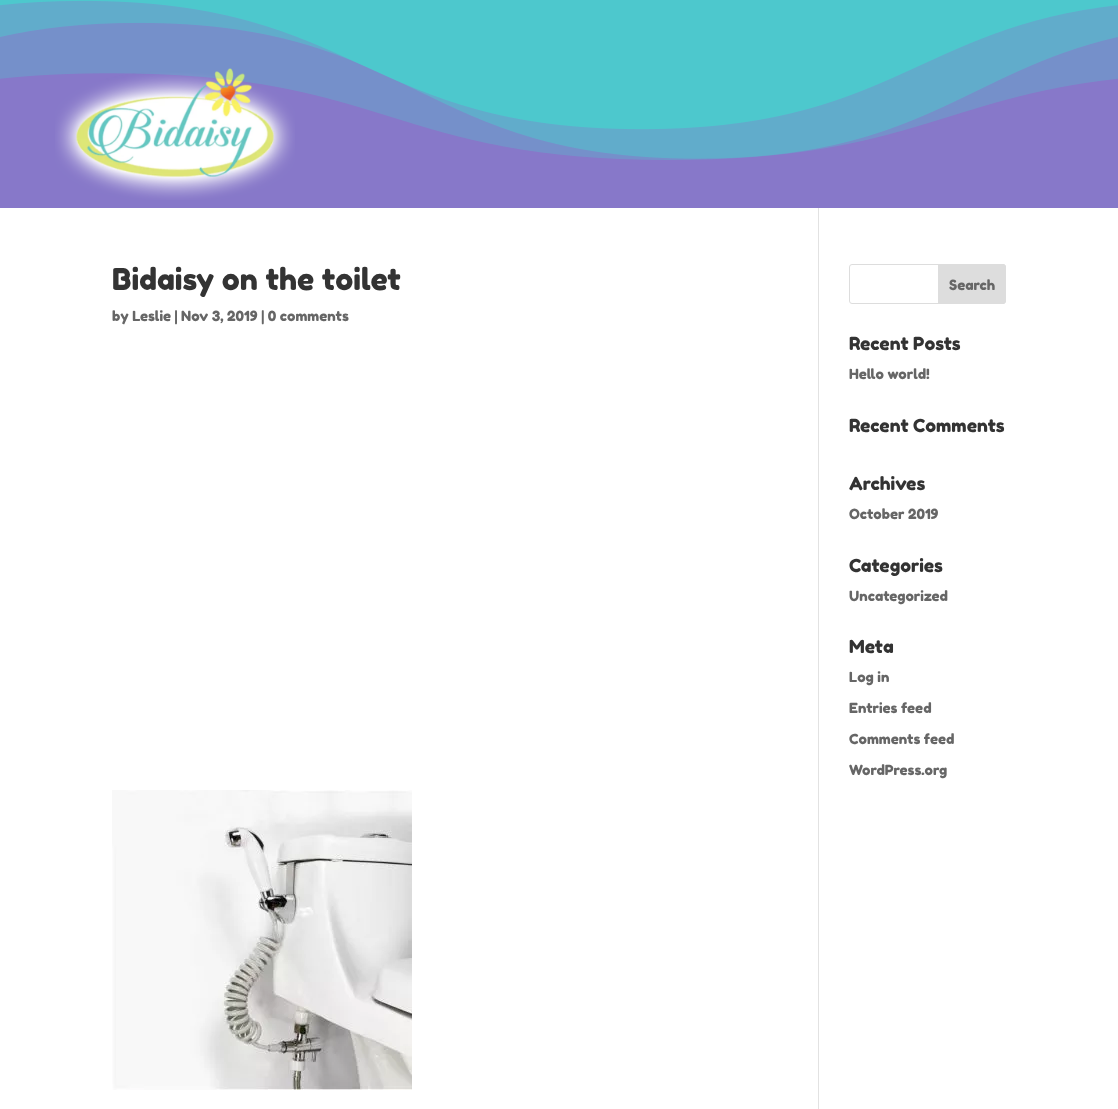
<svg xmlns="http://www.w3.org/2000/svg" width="1118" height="1109">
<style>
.a{font:30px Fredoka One;fill:#333}
.b{font:14px Fredoka One;fill:#666}
.c{font:18px Fredoka One;fill:#333}
</style>
<rect width="100%" height="100%" fill="#fff"/>
<path fill="#e2e2e2" d="M818 206h1v903H818z"/>
<path fill="#8778c9" d="M0 0h1118v208H0z"/>
<image href="2.png" x="55" y="68" width="240" height="132"/>
<image href="1.png" x="0" y="0" width="1118" height="160"/>
<image href="3.png" x="112" y="790" width="300" height="300"/>
<rect fill="none" stroke="#ddd" x="849.5" y="264.5" width="156" height="39" rx="2.5"/>
<path fill="#ddd" stroke="#ddd" d="M938.5 264.5h64.5c1.5 0 2.5 1 2.5 2.5v34c0 1.5-1 2.5-2.5 2.5h-64.5z"/>
<text class="a" x="112" y="290">Bidaisy on the toilet</text>
<text class="b" x="112" y="321">by Leslie | Nov 3, 2019 | 0 comments</text>
<text class="b" x="949" y="290">Search</text>
<text class="c" x="849" y="350">Recent Posts</text>
<text class="b" x="849" y="379">Hello world!</text>
<text class="c" x="849" y="432">Recent Comments</text>
<text class="c" x="849" y="490">Archives</text>
<text class="b" x="849" y="519">October 2019</text>
<text class="c" x="849" y="572">Categories</text>
<text class="b" x="849" y="601">Uncategorized</text>
<text class="c" x="849" y="653">Meta</text>
<text class="b" x="849" y="682">Log in</text>
<text class="b" x="849" y="713">Entries feed</text>
<text class="b" x="849" y="744">Comments feed</text>
<text class="b" x="849" y="775">WordPress.org</text>
</svg>
